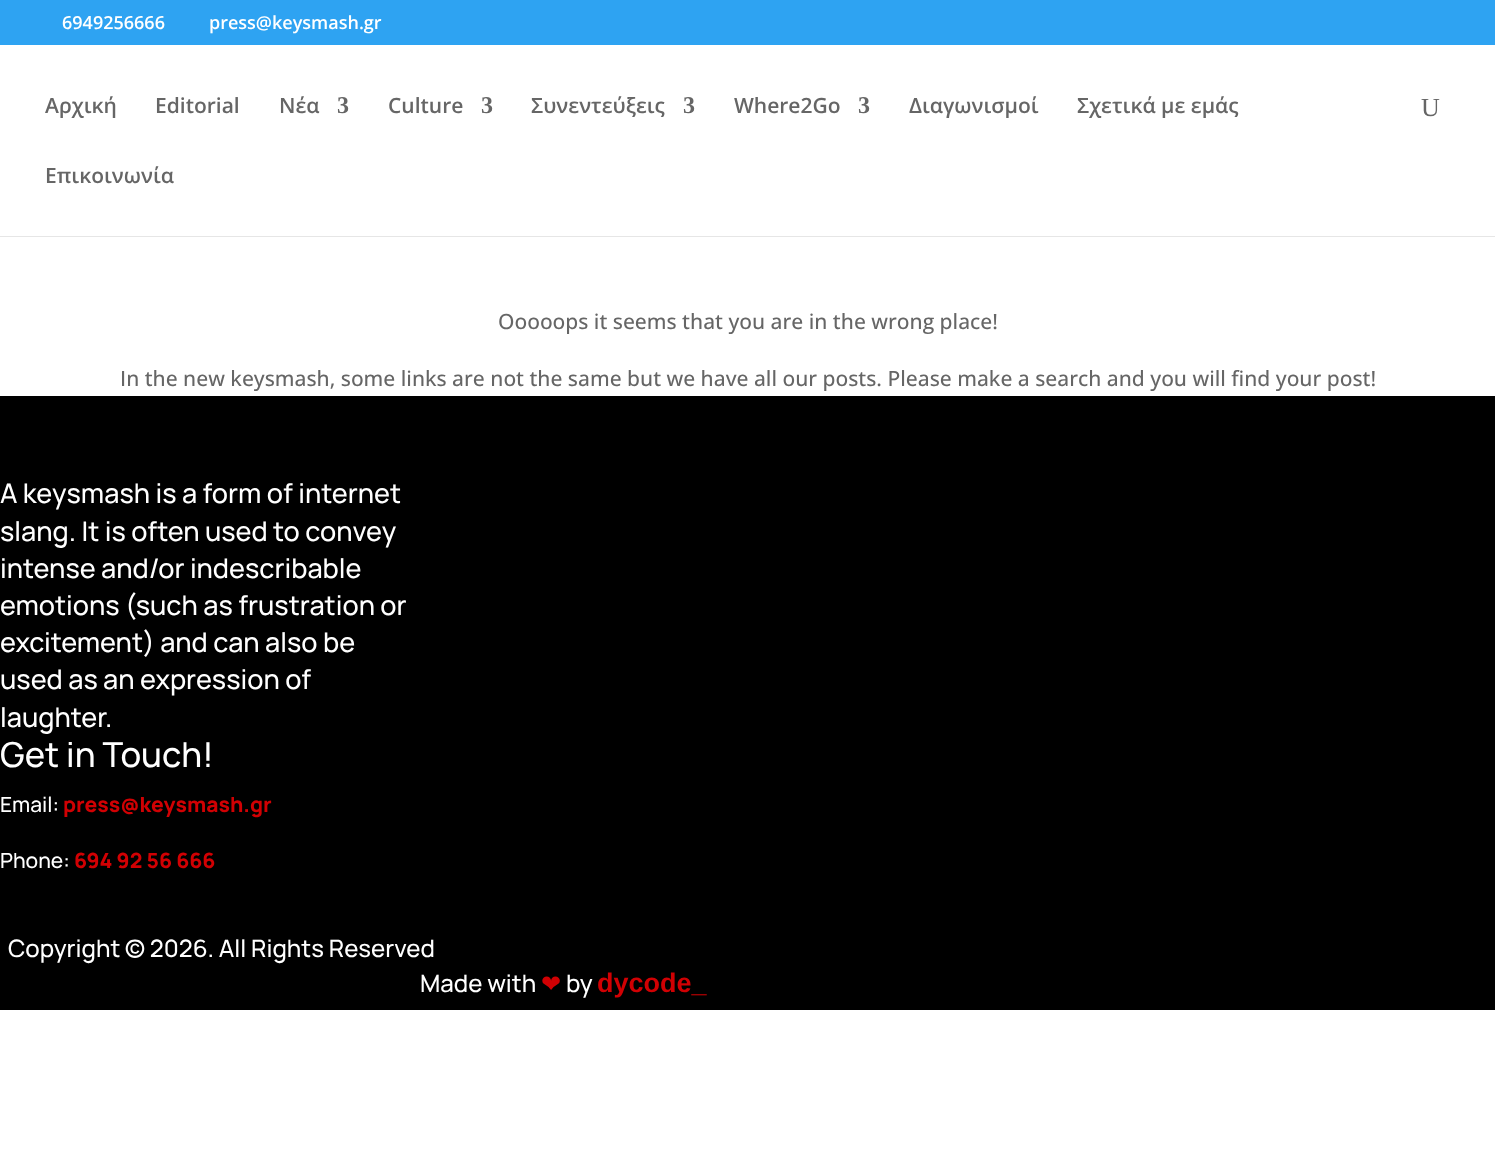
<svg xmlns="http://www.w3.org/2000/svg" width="1495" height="1154">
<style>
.a{font:600 18px Open Sans;fill:#fff}
.b{font:600 21px Open Sans;fill:#666}
.c{font:bold 24px Liberation Serif;fill:#666}
.d{font:26px Liberation Serif;fill:#666}
.e{font:500 21px Open Sans;fill:#666}
.f{font:500 27px Manrope;fill:#fff}
.g{font:500 34.5px Manrope;fill:#fff}
.h{font:500 21px Manrope;fill:#fff}
.i{font:800 21px Manrope;fill:#d10003}
.j{font:500 24px Manrope;fill:#fff}
.k{font:24px DejaVu Sans;fill:#d10003}
.l{font:bold 27px Liberation Sans;fill:#d10003}
</style>
<rect width="100%" height="100%" fill="#fff"/>
<path fill="#2ea3f2" d="M0 0h1495v45H0z"/>
<path fill="#e6e6e6" d="M0 236v1h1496v-190v189z"/>
<path fill="#000" d="M0 396h1495v614H0z"/>
<text class="a" x="62" y="29">6949256666</text>
<text class="a" x="209" y="29">press@keysmash.gr</text>
<text class="b" x="45" y="113">Αρχική</text>
<text class="b" x="155" y="113">Editorial</text>
<text class="b" x="279" y="113">Νέα</text>
<text class="c" x="337" y="113">3</text>
<text class="b" x="388" y="113">Culture</text>
<text class="c" x="481" y="113">3</text>
<text class="b" x="531" y="113">Συνεντεύξεις</text>
<text class="c" x="683" y="113">3</text>
<text class="b" x="734" y="113">Where2Go</text>
<text class="c" x="858" y="113">3</text>
<text class="b" x="909" y="113">Διαγωνισμοί</text>
<text class="b" x="1077" y="113">Σχετικά με εμάς</text>
<text class="b" x="45" y="183">Επικοινωνία</text>
<text class="d" x="1421" y="116">U</text>
<text class="e" x="498" y="329">Ooooops it seems that you are in the wrong place!</text>
<text class="e" x="120" y="386">In the new keysmash, some links are not the same but we have all our posts. Please make a search and you will find your post!</text>
<text class="f" x="0" y="503">A keysmash is a form of internet</text>
<text class="f" x="0" y="541">slang. It is often used to convey</text>
<text class="f" x="0" y="578">intense and/or indescribable</text>
<text class="f" x="0" y="615">emotions (such as frustration or</text>
<text class="f" x="0" y="652">excitement) and can also be</text>
<text class="f" x="0" y="689">used as an expression of</text>
<text class="f" x="0" y="727">laughter.</text>
<text class="g" x="0" y="767">Get in Touch!</text>
<text class="h" x="0" y="812">Email:</text>
<text class="i" x="63" y="812">press@keysmash.gr</text>
<text class="h" x="0" y="868">Phone:</text>
<text class="i" x="74" y="868">694 92 56 666</text>
<text class="j" x="8" y="957">Copyright © 2026. All Rights Reserved</text>
<text class="j" x="420" y="992">Made with</text>
<text class="k" x="541" y="992">❤︎</text>
<text class="j" x="566" y="992">by</text>
<text class="l" x="597" y="992">dycode_</text>
</svg>
